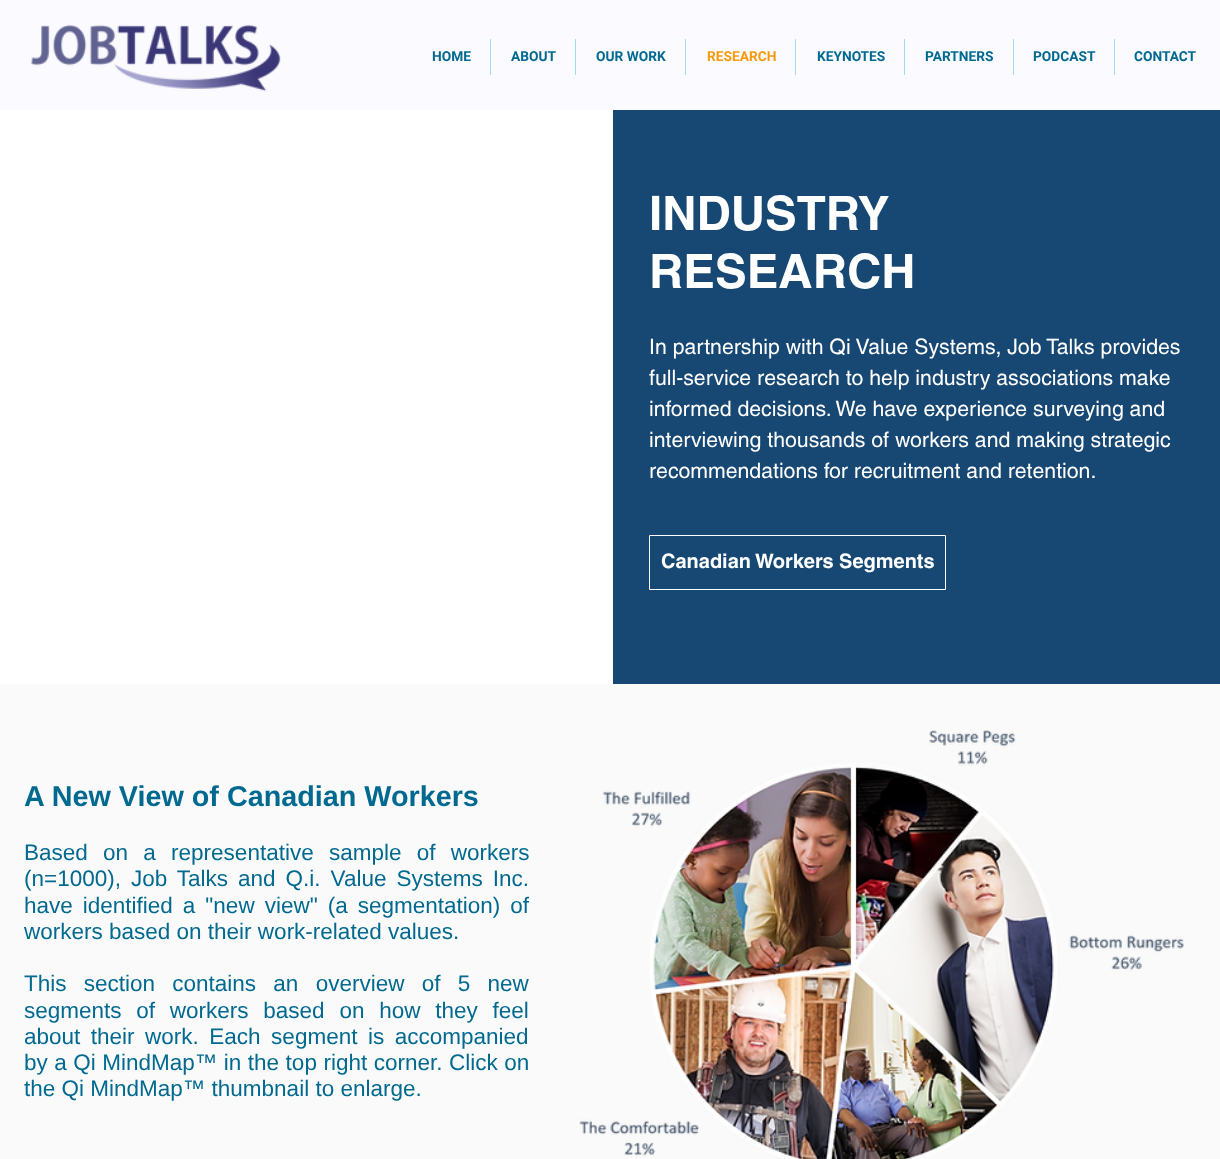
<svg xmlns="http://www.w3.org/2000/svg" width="1220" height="1159">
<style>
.a{font:bold 13.75px Roboto;fill:#006990}
.b{font:bold 13.75px Roboto;fill:#f79a0e}
.c{font:bold 47.5px helvetica;fill:#fff}
.d{font:21.25px helvetica;fill:#fff}
.e{font:bold 20px helvetica;fill:#fff}
.f{font:bold 28.75px Liberation Sans;fill:#006990}
.g{font:22.5px Liberation Sans;fill:#006990}
</style>
<rect width="100%" height="100%" fill="#fff"/>
<path fill="#fafaff" d="M0 0h1220v110H0z"/>
<image href="1.png" x="31" y="24" width="250" height="68"/>
<path fill="#a1dcf2" d="M490 39h1v36H490z"/>
<path fill="#a1dcf2" d="M575 39h1v36H575z"/>
<path fill="#a1dcf2" d="M685 39h1v36H685z"/>
<path fill="#a1dcf2" d="M795 39h1v36H795z"/>
<path fill="#a1dcf2" d="M904 39h1v36H904z"/>
<path fill="#a1dcf2" d="M1013 39h1v36H1013z"/>
<path fill="#a1dcf2" d="M1114 39h1v36H1114z"/>
<path fill="#164873" d="M613 110h607v574H613z"/>
<path fill="none" stroke="#fff" d="M649.5 535.5h296v54H649.5z"/>
<path fill="#fafafa" d="M0 684h1220v475H0z"/>
<image href="2.png" x="579" y="730" width="605" height="429"/>
<text class="a" x="432" y="61">HOME</text>
<text class="a" x="511" y="61">ABOUT</text>
<text class="a" x="596" y="61">OUR WORK</text>
<text class="b" x="707" y="61">RESEARCH</text>
<text class="a" x="817" y="61">KEYNOTES</text>
<text class="a" x="925" y="61">PARTNERS</text>
<text class="a" x="1033" y="61">PODCAST</text>
<text class="a" x="1134" y="61">CONTACT</text>
<text class="c" x="649" y="230">INDUSTRY</text>
<text class="c" x="649" y="288">RESEARCH</text>
<text class="d" x="649" y="354">In partnership with Qi Value Systems, Job Talks provides</text>
<text class="d" x="649" y="385">full-service research to help industry associations make</text>
<text class="d" x="649" y="416">informed decisions. We have experience surveying and</text>
<text class="d" x="649" y="447">interviewing thousands of workers and making strategic</text>
<text class="d" x="649" y="478">recommendations for recruitment and retention.</text>
<text class="e" x="661" y="568">Canadian Workers Segments</text>
<text class="f" x="24" y="806">A New View of Canadian Workers</text>
<text class="g" x="24" y="860" word-spacing="9">Based on a representative sample of workers</text>
<text class="g" x="24" y="886" word-spacing="3.75">(n=1000), Job Talks and Q.i. Value Systems Inc.</text>
<text class="g" x="24" y="913" word-spacing="3.75">have identified a "new view" (a segmentation) of</text>
<text class="g" x="24" y="939">workers based on their work-related values.</text>
<text class="g" x="24" y="991" word-spacing="11">This section contains an overview of 5 new</text>
<text class="g" x="24" y="1018" word-spacing="8.5">segments of workers based on how they feel</text>
<text class="g" x="24" y="1044" word-spacing="4.25">about their work. Each segment is accompanied</text>
<text class="g" x="24" y="1070" word-spacing="0.25">by a Qi MindMap™ in the top right corner. Click on</text>
<text class="g" x="24" y="1096">the Qi MindMap™ thumbnail to enlarge.</text>
</svg>
